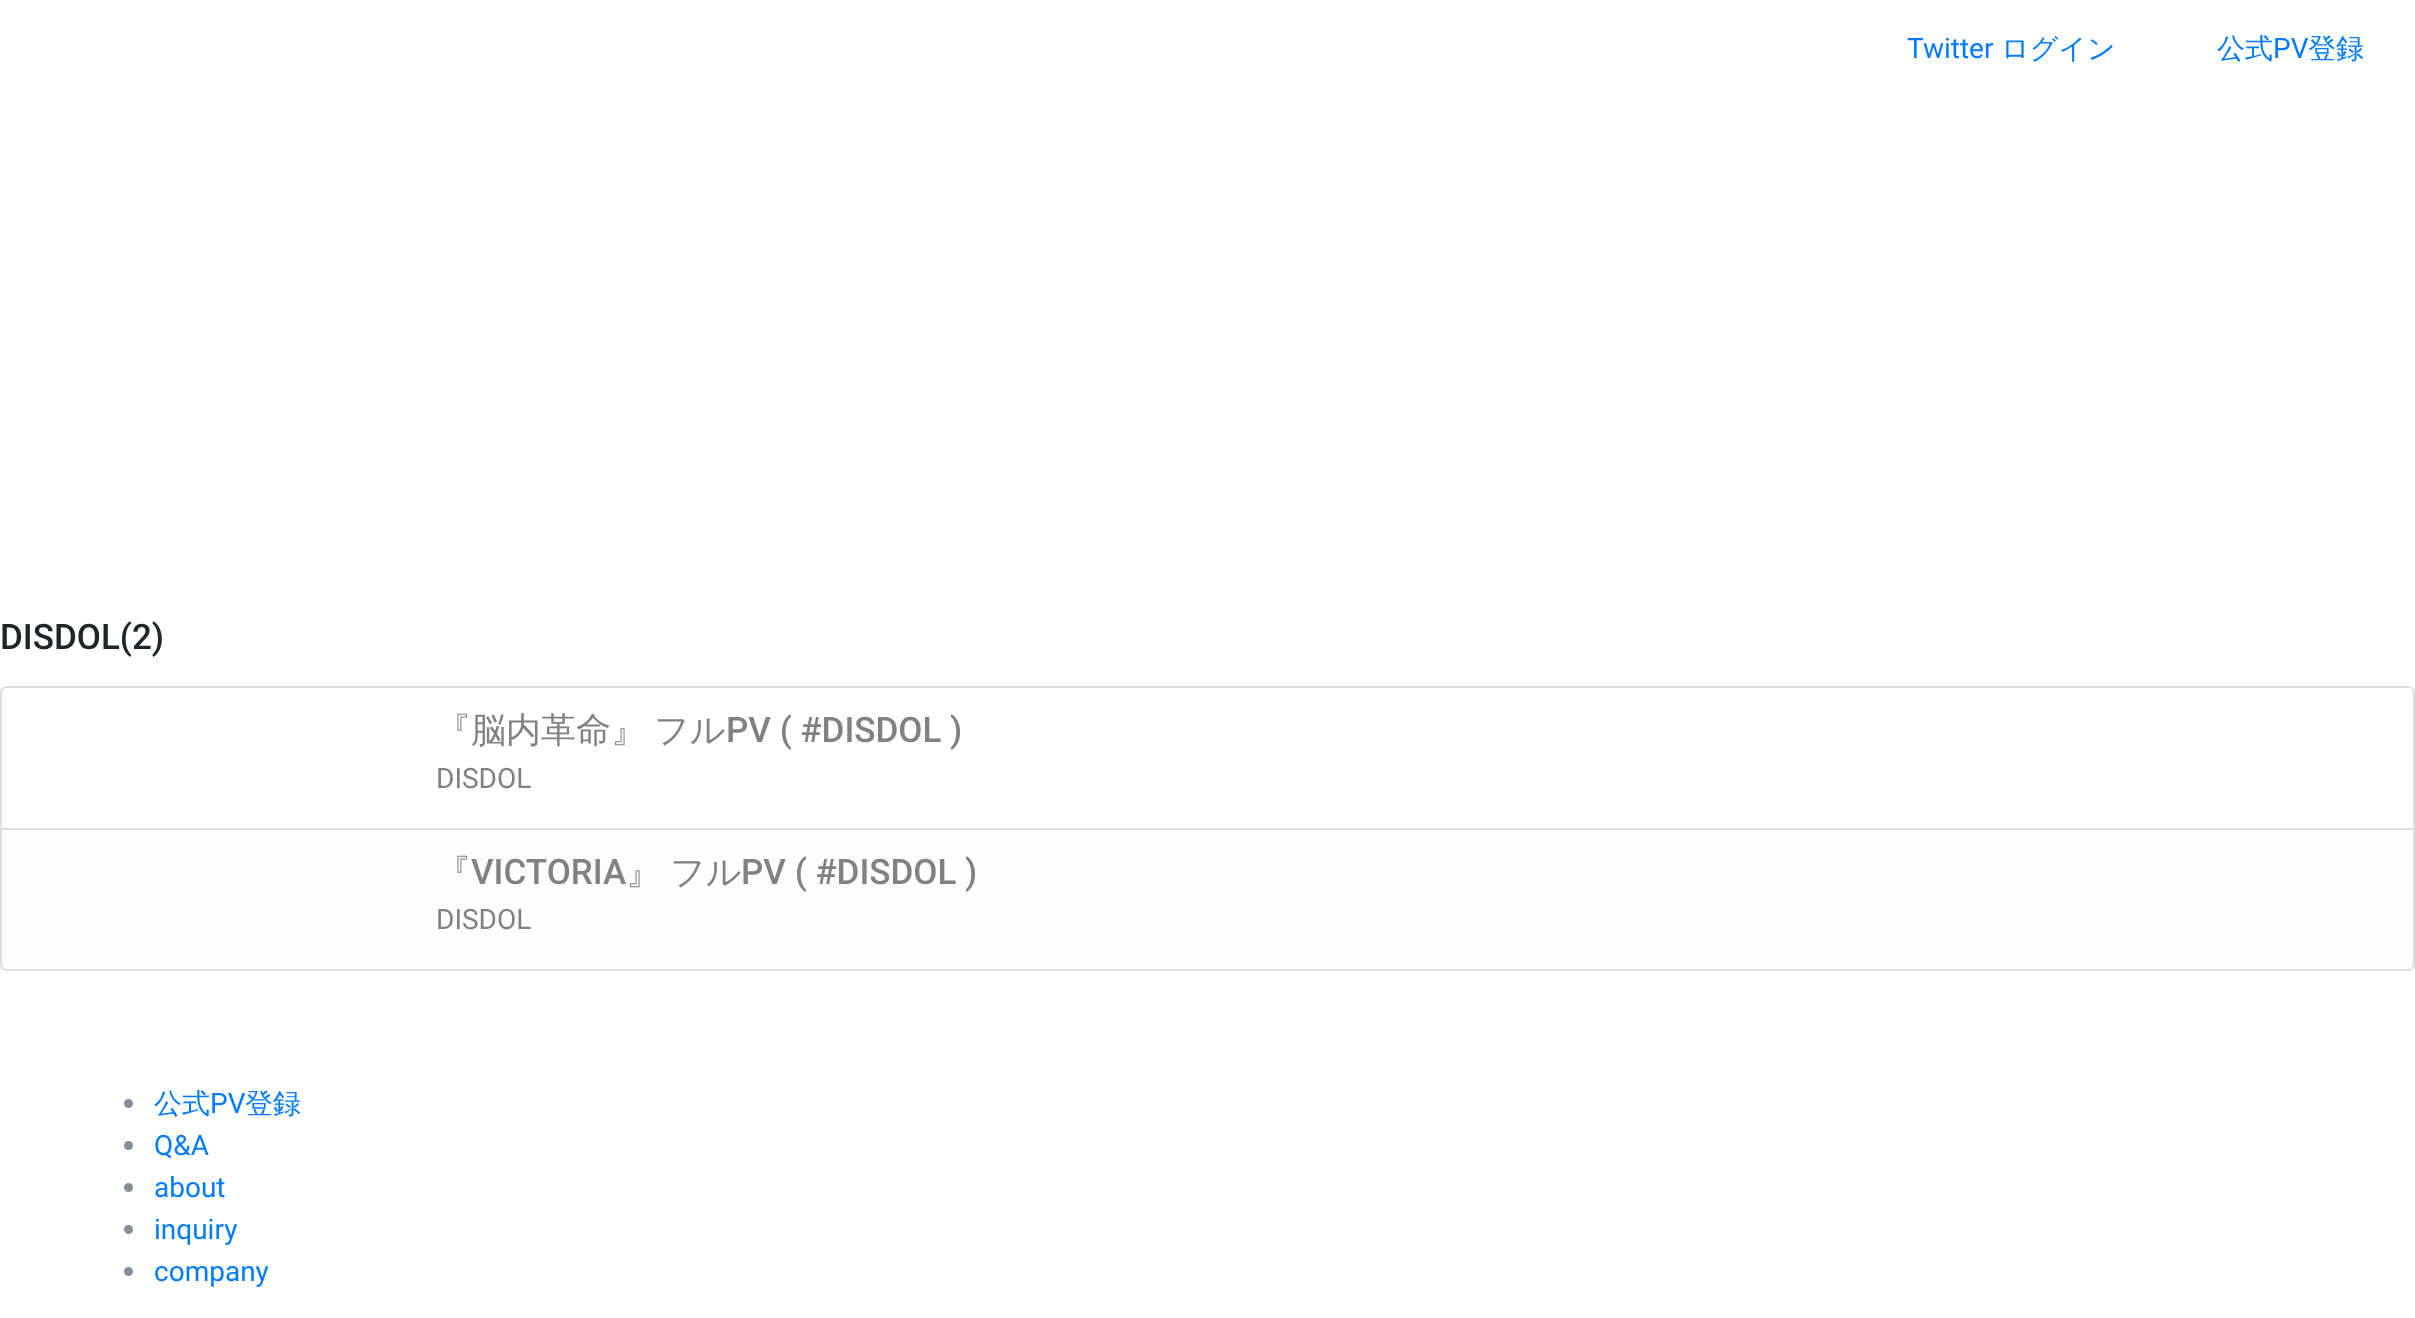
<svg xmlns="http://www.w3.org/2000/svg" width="2415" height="1318">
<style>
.a{font:28px Roboto;fill:#007bff}
.b{font:500 28px WenQuanYi Zen Hei;fill:#007bff}
.c{font:500 35px Roboto;fill:#212529}
.d{font:500 35px WenQuanYi Zen Hei;fill:#818182}
.e{font:500 35px Roboto;fill:#818182}
.f{font:28px Roboto;fill:#818182}
</style>
<rect width="100%" height="100%" fill="#fff"/>
<path fill="none" stroke="#ddddde" stroke-width="2" d="M7 687h2401c3.5 0 6 2.5 6 6v136h-2413v-136c0-3.5 2.5-6 6-6z"/>
<path fill="#fdfdfe" stroke="#ddddde" stroke-width="2" d="M1 829h2413v135c0 3.5-2.5 6-6 6h-2401c-3.5 0-6-2.5-6-6z"/>
<circle fill="#868e96" cx="128.5" cy="1103.5" r="4.5"/>
<circle fill="#868e96" cx="128.5" cy="1145.5" r="4.5"/>
<circle fill="#868e96" cx="128.5" cy="1187.5" r="4.5"/>
<circle fill="#868e96" cx="128.5" cy="1229.5" r="4.5"/>
<circle fill="#868e96" cx="128.5" cy="1271.5" r="4.5"/>
<text class="a" x="1907" y="58">Twitter</text>
<text class="b" x="2001" y="58">ログイン</text>
<text class="b" x="2217" y="58">公式</text>
<text class="a" x="2273" y="58">PV</text>
<text class="b" x="2308" y="58">登録</text>
<text class="c" x="0" y="649">DISDOL(2)</text>
<text class="d" x="436" y="742">『脳内革命』</text>
<text class="d" x="654" y="742">フル</text>
<text class="e" x="726" y="742">PV ( #DISDOL )</text>
<text class="f" x="436" y="788">DISDOL</text>
<text class="d" x="436" y="884">『</text>
<text class="e" x="471" y="884">VICTORIA</text>
<text class="d" x="626" y="884">』</text>
<text class="d" x="670" y="884">フル</text>
<text class="e" x="741" y="884">PV ( #DISDOL )</text>
<text class="f" x="436" y="929">DISDOL</text>
<text class="b" x="154" y="1113">公式</text>
<text class="a" x="210" y="1113">PV</text>
<text class="b" x="245" y="1113">登録</text>
<text class="a" x="154" y="1155">Q&amp;A</text>
<text class="a" x="154" y="1197">about</text>
<text class="a" x="154" y="1239">inquiry</text>
<text class="a" x="154" y="1281">company</text>
</svg>
